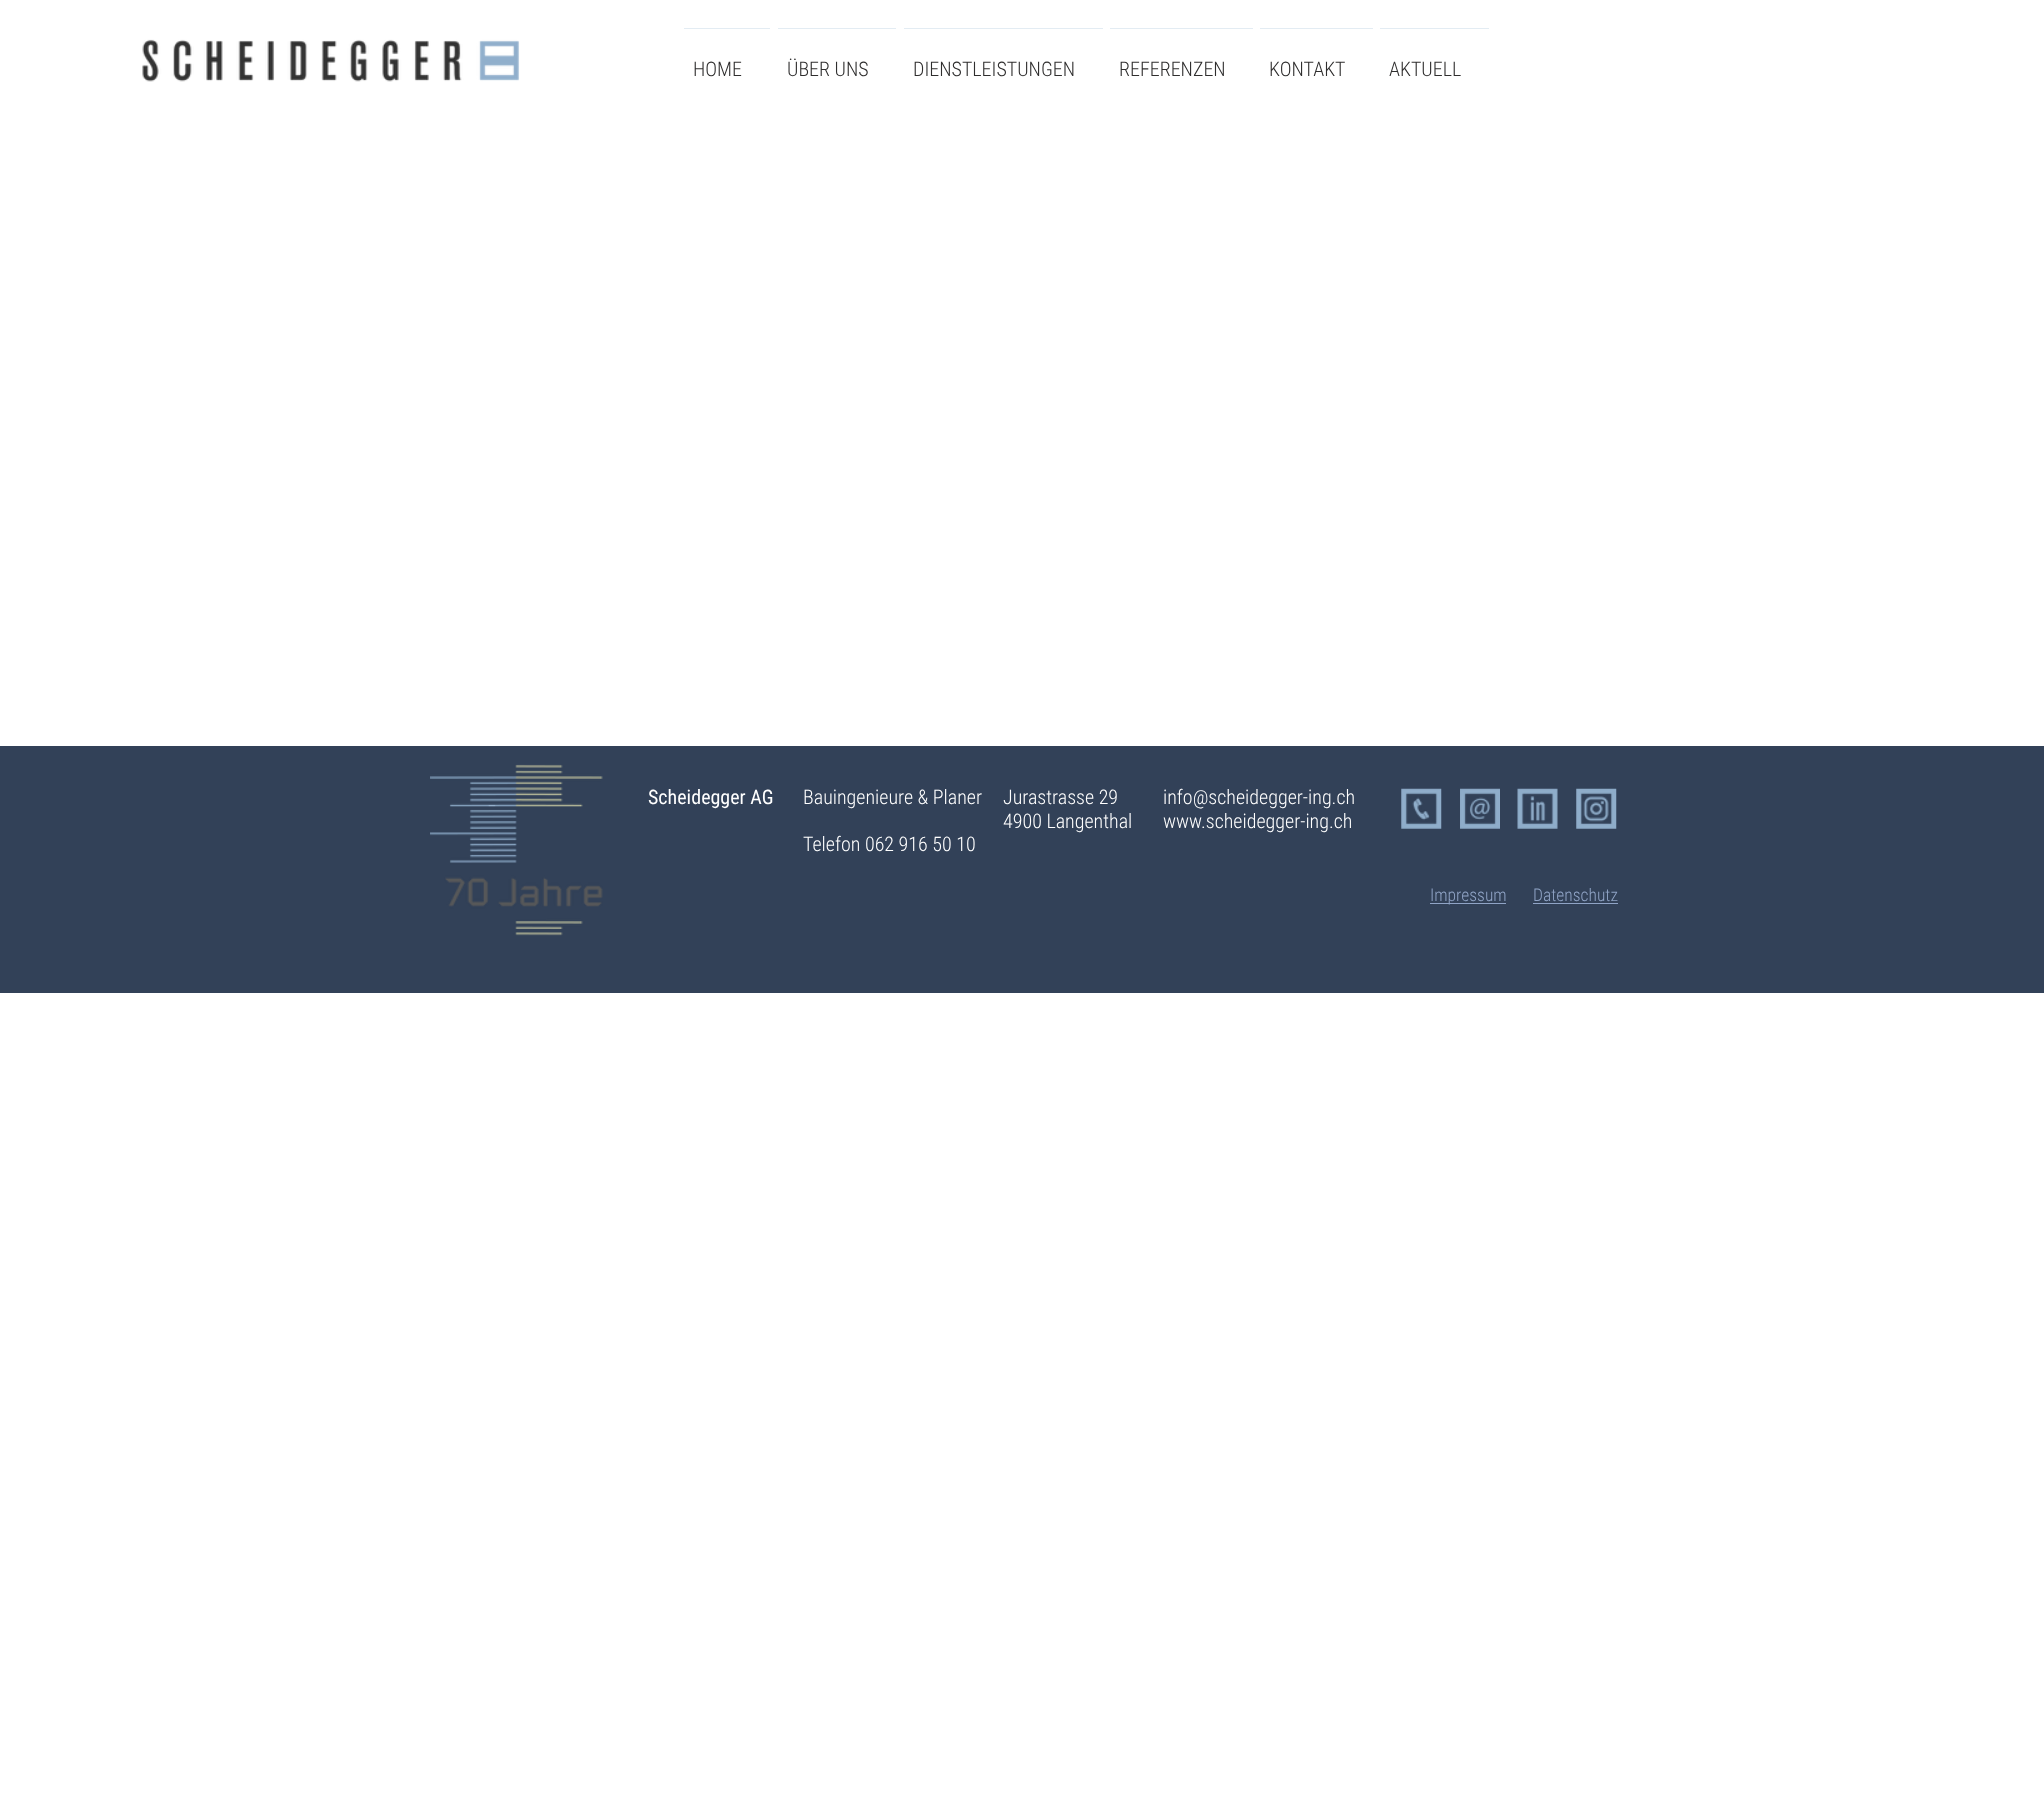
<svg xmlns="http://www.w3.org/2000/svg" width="2044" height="1819">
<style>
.a{font:300 20px Roboto Condensed;fill:#2f2e2e}
.b{font:20px Roboto Condensed;fill:#fff}
.c{font:300 20px Roboto Condensed;fill:#fff}
.d{font:300 17.5px Roboto Condensed;fill:#90a4c6}
</style>
<rect width="100%" height="100%" fill="#fff"/>
<image href="1.png" x="142" y="39" width="378" height="43"/>
<path fill="#e3ecf3" d="M684 28h86v1H684z"/>
<path fill="#e3ecf3" d="M778 28h118v1H778z"/>
<path fill="#e3ecf3" d="M904 28h199v1H904z"/>
<path fill="#e3ecf3" d="M1110 28h143v1H1110z"/>
<path fill="#e3ecf3" d="M1260 28h113v1H1260z"/>
<path fill="#e3ecf3" d="M1380 28h109v1H1380z"/>
<path fill="#324158" d="M0 746h2044v247H0z"/>
<image href="2.png" x="430" y="764" width="173" height="172"/>
<image href="3.png" x="1401" y="788" width="41" height="41"/>
<image href="4.png" x="1460" y="788" width="40" height="41"/>
<image href="5.png" x="1517" y="788" width="41" height="41"/>
<image href="6.png" x="1576" y="788" width="41" height="41"/>
<path fill="#90a4c6" d="M1430 903h76v1H1430z"/>
<path fill="#90a4c6" d="M1533 903h85v1H1533z"/>
<text class="a" x="693" y="76">HOME</text>
<text class="a" x="787" y="76">ÜBER UNS</text>
<text class="a" x="913" y="76">DIENSTLEISTUNGEN</text>
<text class="a" x="1119" y="76">REFERENZEN</text>
<text class="a" x="1269" y="76">KONTAKT</text>
<text class="a" x="1389" y="76">AKTUELL</text>
<text class="b" x="648" y="804">Scheidegger AG</text>
<text class="c" x="803" y="804">Bauingenieure &amp; Planer</text>
<text class="c" x="1003" y="804">Jurastrasse 29</text>
<text class="c" x="1003" y="828">4900 Langenthal</text>
<text class="c" x="1163" y="804">info@scheidegger-ing.ch</text>
<text class="c" x="1163" y="828">www.scheidegger-ing.ch</text>
<text class="c" x="803" y="851">Telefon 062 916 50 10</text>
<text class="d" x="1430" y="901">Impressum</text>
<text class="d" x="1533" y="901">Datenschutz</text>
</svg>
